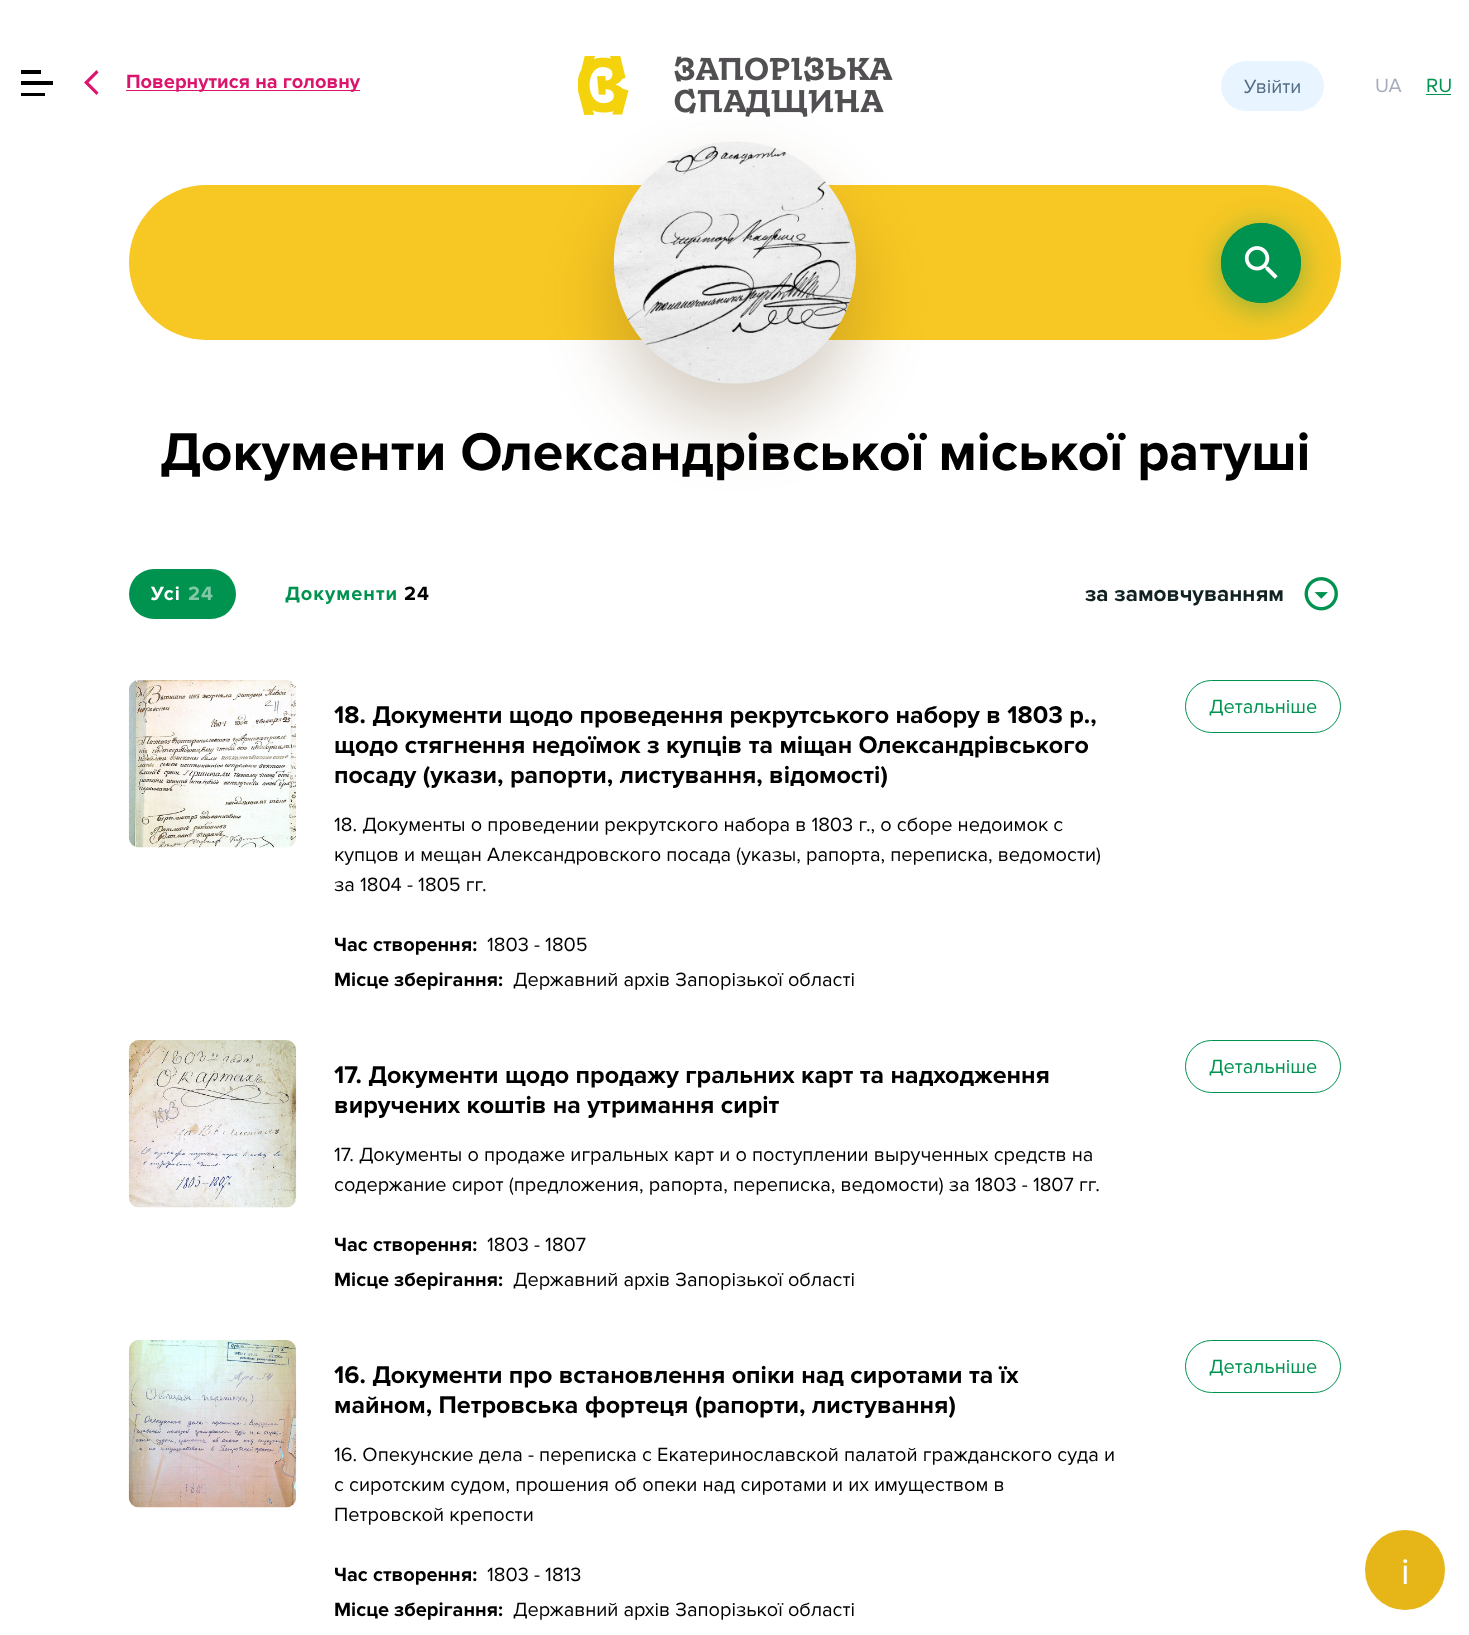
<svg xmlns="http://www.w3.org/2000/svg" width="1469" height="1635">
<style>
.a{font:bold 20px Proxima Nova;fill:#db156d}
.b{font:20px Proxima Nova;fill:#536d85}
.c{font:20px Proxima Nova;fill:#a6abbd}
.d{font:20px Proxima Nova;fill:#00924f}
.e{font:bold 55px Proxima Nova;fill:#000}
.f{font:bold 20px Proxima Nova;letter-spacing:1px;fill:#fff}
.g{font:bold 20px Proxima Nova;letter-spacing:1px;fill:#80c9a7}
.h{font:bold 20px Proxima Nova;letter-spacing:1px;fill:#00924f}
.i{font:bold 20px Proxima Nova;letter-spacing:1px;fill:#000}
.j{font:bold 22.5px Proxima Nova;fill:#112121}
.k{font:bold 25px Proxima Nova;fill:#000}
.l{font:20px Proxima Nova;fill:#000}
.m{font:bold 20px Proxima Nova;fill:#000}
.n{font:38px Proxima Nova;fill:#fff}
</style>
<rect width="100%" height="100%" fill="#fff"/>
<path fill="#000" d="M21 70h20v4H21z"/>
<path fill="#000" d="M21 81h32v4H21z"/>
<path fill="#000" d="M21 93h24v3H21z"/>
<path fill="#db156d" d="M98.5 72.5l-2-2.5l-12.5 12.5l12.5 12.5l2-2.5l-10-10z"/>
<path fill="#db156d" d="M126 90h234v1H126z"/>
<image href="1.png" x="578" y="56" width="315" height="61"/>
<rect fill="#e8f4ff" x="1221" y="61" width="103" height="50" rx="25"/>
<path fill="#00924f" d="M1426 94h25v1H1426z"/>
<rect fill="#f7c723" x="129" y="185" width="1212" height="155" rx="77.5"/>
<rect fill="#5c3a0e40" filter="blur(34.5px)" x="614" y="179" width="242" height="242" rx="121"/>
<image href="2.png" x="613" y="141" width="244" height="243"/>
<circle fill="none" stroke="#00924f" stroke-width="3" cx="1261" cy="263" r="38.5"/>
<rect fill="#00924f73" filter="blur(15.5px)" x="1221" y="228" width="80" height="80" rx="40"/>
<circle fill="#00924f" cx="1261" cy="263" r="40"/>
<image href="3.png" x="1244" y="246" width="34" height="33"/>
<rect fill="#00924f" x="129" y="569" width="107" height="50" rx="25"/>
<image href="4.png" x="1304" y="577" width="34" height="34"/>
<image href="5.png" x="128" y="680" width="169" height="168"/>
<rect fill="none" stroke="#00924f" x="1185.5" y="680.5" width="155" height="52" rx="26"/>
<image href="6.png" x="128" y="1040" width="169" height="168"/>
<rect fill="none" stroke="#00924f" x="1185.5" y="1040.5" width="155" height="52" rx="26"/>
<image href="7.png" x="128" y="1340" width="169" height="168"/>
<rect fill="none" stroke="#00924f" x="1185.5" y="1340.5" width="155" height="52" rx="26"/>
<circle fill="#e6b619" stroke="#e6b619" stroke-width="3" cx="1405" cy="1570" r="38.5"/>
<text class="a" x="126" y="88">Повернутися на головну</text>
<text class="b" x="1244" y="93">Увійти</text>
<text class="c" x="1375" y="92">UA</text>
<text class="d" x="1426" y="92">RU</text>
<text class="e" x="160" y="470">Документи Олександрівської міської ратуші</text>
<text class="f" x="151" y="600">Усі</text>
<text class="g" x="188" y="600">24</text>
<text class="h" x="285" y="600">Документи</text>
<text class="i" x="404" y="600">24</text>
<text class="j" x="1085" y="601">за замовчуванням</text>
<text class="k" x="334" y="723">18. Документи щодо проведення рекрутського набору в 1803 р.,</text>
<text class="k" x="334" y="753">щодо стягнення недоїмок з купців та міщан Олександрівського</text>
<text class="k" x="334" y="783">посаду (укази, рапорти, листування, відомості)</text>
<text class="l" x="334" y="831">18. Документы о проведении рекрутского набора в 1803 г., о сборе недоимок с</text>
<text class="l" x="334" y="861">купцов и мещан Александровского посада (указы, рапорта, переписка, ведомости)</text>
<text class="l" x="334" y="891">за 1804 - 1805 гг.</text>
<text class="m" x="334" y="951">Час створення:</text>
<text class="l" x="487" y="951">1803 - 1805</text>
<text class="m" x="334" y="986">Місце зберігання:</text>
<text class="l" x="513" y="986">Державний архів Запорізької області</text>
<text class="d" x="1209" y="713">Детальніше</text>
<text class="k" x="334" y="1083">17. Документи щодо продажу гральних карт та надходження</text>
<text class="k" x="334" y="1113">виручених коштів на утримання сиріт</text>
<text class="l" x="334" y="1161">17. Документы о продаже игральных карт и о поступлении вырученных средств на</text>
<text class="l" x="334" y="1191">содержание сирот (предложения, рапорта, переписка, ведомости) за 1803 - 1807 гг.</text>
<text class="m" x="334" y="1251">Час створення:</text>
<text class="l" x="487" y="1251">1803 - 1807</text>
<text class="m" x="334" y="1286">Місце зберігання:</text>
<text class="l" x="513" y="1286">Державний архів Запорізької області</text>
<text class="d" x="1209" y="1073">Детальніше</text>
<text class="k" x="334" y="1383">16. Документи про встановлення опіки над сиротами та їх</text>
<text class="k" x="334" y="1413">майном, Петровська фортеця (рапорти, листування)</text>
<text class="l" x="334" y="1461">16. Опекунские дела - переписка с Екатеринославской палатой гражданского суда и</text>
<text class="l" x="334" y="1491">с сиротским судом, прошения об опеки над сиротами и их имуществом в</text>
<text class="l" x="334" y="1521">Петровской крепости</text>
<text class="m" x="334" y="1581">Час створення:</text>
<text class="l" x="487" y="1581">1803 - 1813</text>
<text class="m" x="334" y="1616">Місце зберігання:</text>
<text class="l" x="513" y="1616">Державний архів Запорізької області</text>
<text class="d" x="1209" y="1373">Детальніше</text>
<text class="n" x="1401" y="1584">i</text>
</svg>
